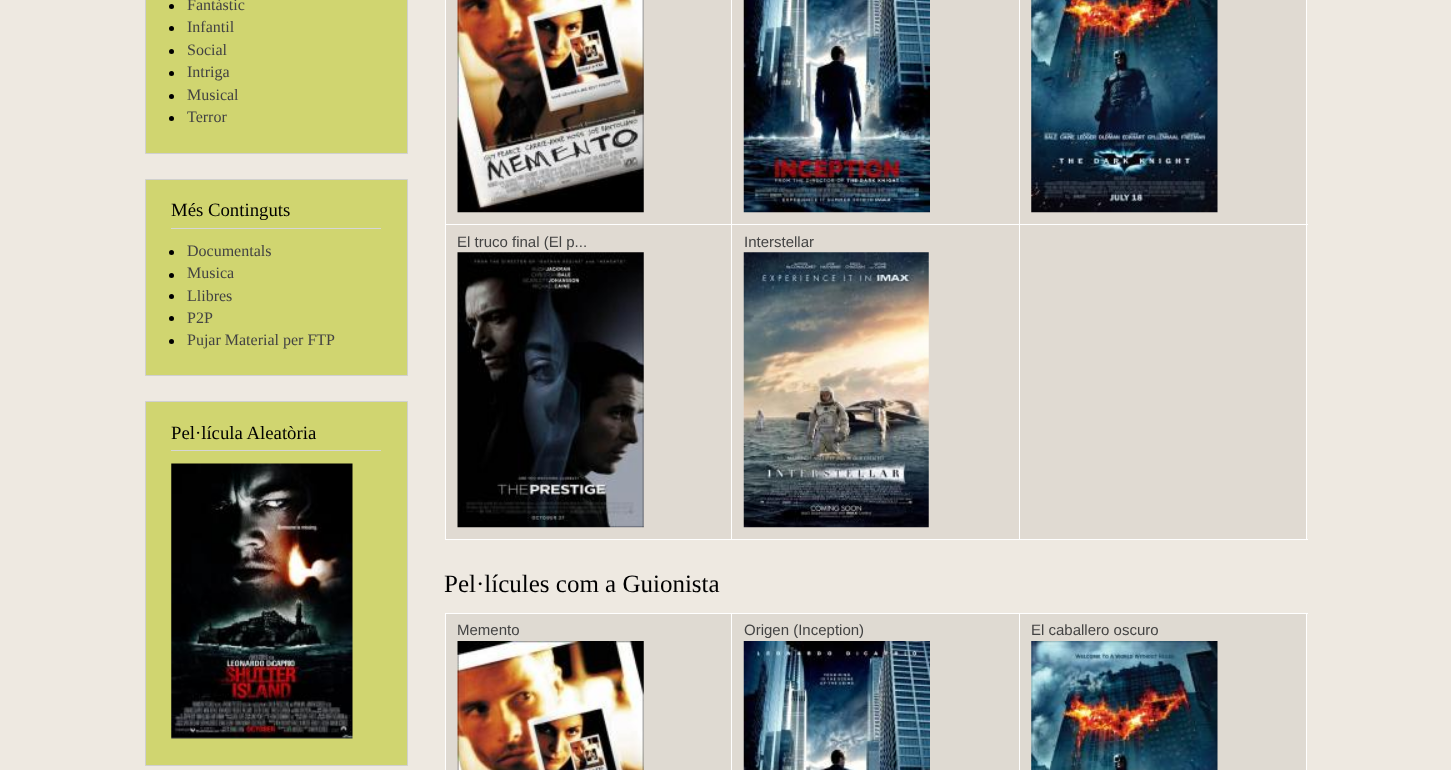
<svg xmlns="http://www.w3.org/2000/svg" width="1451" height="770">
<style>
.a{font:16px Liberation Serif;fill:#434343}
.b{font:18.75px Liberation Serif;fill:#000}
.c{font:15px Liberation Sans;fill:#434343}
.d{font:25px Liberation Serif;fill:#000}
</style>
<rect width="100%" height="100%" fill="#eee9e1"/>
<path fill="#d0d570" stroke="#d0d0d0" d="M145.5 -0.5h262v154H145.5z"/>
<circle fill="#000" cx="171.5" cy="6.5" r="2.5"/>
<circle fill="#000" cx="171.5" cy="28.5" r="2.5"/>
<circle fill="#000" cx="171.5" cy="51.5" r="2.5"/>
<circle fill="#000" cx="171.5" cy="73.5" r="2.5"/>
<circle fill="#000" cx="171.5" cy="96.5" r="2.5"/>
<circle fill="#000" cx="171.5" cy="118.5" r="2.5"/>
<path fill="#d0d570" stroke="#d0d0d0" d="M145.5 179.5h262v196H145.5z"/>
<path fill="#d6d6d6" d="M171 228h210v1H171z"/>
<circle fill="#000" cx="171.5" cy="252.5" r="2.5"/>
<circle fill="#000" cx="171.5" cy="275.5" r="2.5"/>
<circle fill="#000" cx="171.5" cy="296.5" r="2.5"/>
<circle fill="#000" cx="171.5" cy="318.5" r="2.5"/>
<circle fill="#000" cx="171.5" cy="341.5" r="2.5"/>
<path fill="#d0d570" stroke="#d0d0d0" d="M145.5 401.5h262v364H145.5z"/>
<path fill="#d6d6d6" d="M171 450h210v1H171z"/>
<image href="1.png" x="171" y="463" width="182" height="276"/>
<path fill="#e0dad2" d="M446 0h860v224H446z"/>
<image href="2.png" x="457" y="0" width="187" height="213"/>
<path fill="#fff" d="M1019 224h289v1H1019z"/>
<path fill="#e0dad2" d="M446 225h860v314H446z"/>
<path fill="#fff" d="M1306 0h1v540H1306z"/>
<path fill="#fff" d="M1019 539h289v1H1019z"/>
<path fill="#fff" d="M1019 224h1v316H1019z"/>
<path fill="#fff" d="M731 224h289v1H731z"/>
<path fill="#fff" d="M731 539h289v1H731z"/>
<path fill="#fff" d="M731 224h1v316H731z"/>
<path fill="#fff" d="M445 224h288v1H445z"/>
<path fill="#fff" d="M731 0h1v225H731z"/>
<image href="3.png" x="743" y="0" width="187" height="213"/>
<path fill="#fff" d="M1019 0h1v225H1019z"/>
<image href="4.png" x="1031" y="0" width="187" height="213"/>
<path fill="#fff" d="M445 539h288v1H445z"/>
<path fill="#fff" d="M445 0h1v540H445z"/>
<image href="5.png" x="457" y="252" width="187" height="276"/>
<image href="6.png" x="743" y="252" width="186" height="276"/>
<path fill="#dfdad2" d="M446 614h860v156H446z"/>
<path fill="#fff" d="M1019 613h289v1H1019z"/>
<path fill="#fff" d="M1019 613h1v157H1019z"/>
<path fill="#fff" d="M731 613h289v1H731z"/>
<path fill="#fff" d="M731 613h1v157H731z"/>
<path fill="#fff" d="M445 613h288v1H445z"/>
<path fill="#fff" d="M445 613h1v157H445z"/>
<image href="7.png" x="457" y="641" width="187" height="129"/>
<image href="8.png" x="743" y="641" width="187" height="129"/>
<path fill="#fff" d="M1306 613h1v157H1306z"/>
<image href="9.png" x="1031" y="641" width="187" height="129"/>
<text class="a" x="187" y="10">Fantàstic</text>
<text class="a" x="187" y="32">Infantil</text>
<text class="a" x="187" y="55">Social</text>
<text class="a" x="187" y="77">Intriga</text>
<text class="a" x="187" y="100">Musical</text>
<text class="a" x="187" y="122">Terror</text>
<text class="b" x="171" y="216">Més Continguts</text>
<text class="a" x="187" y="256">Documentals</text>
<text class="a" x="187" y="278">Musica</text>
<text class="a" x="187" y="301">Llibres</text>
<text class="a" x="187" y="323">P2P</text>
<text class="a" x="187" y="345">Pujar Material per FTP</text>
<text class="b" x="171" y="439">Pel·lícula Aleatòria</text>
<text class="c" x="457" y="247">El truco final (El p...</text>
<text class="c" x="744" y="247">Interstellar</text>
<text class="d" x="444" y="592">Pel·lícules com a Guionista</text>
<text class="c" x="457" y="635">Memento</text>
<text class="c" x="744" y="635">Origen (Inception)</text>
<text class="c" x="1031" y="635">El caballero oscuro</text>
</svg>
